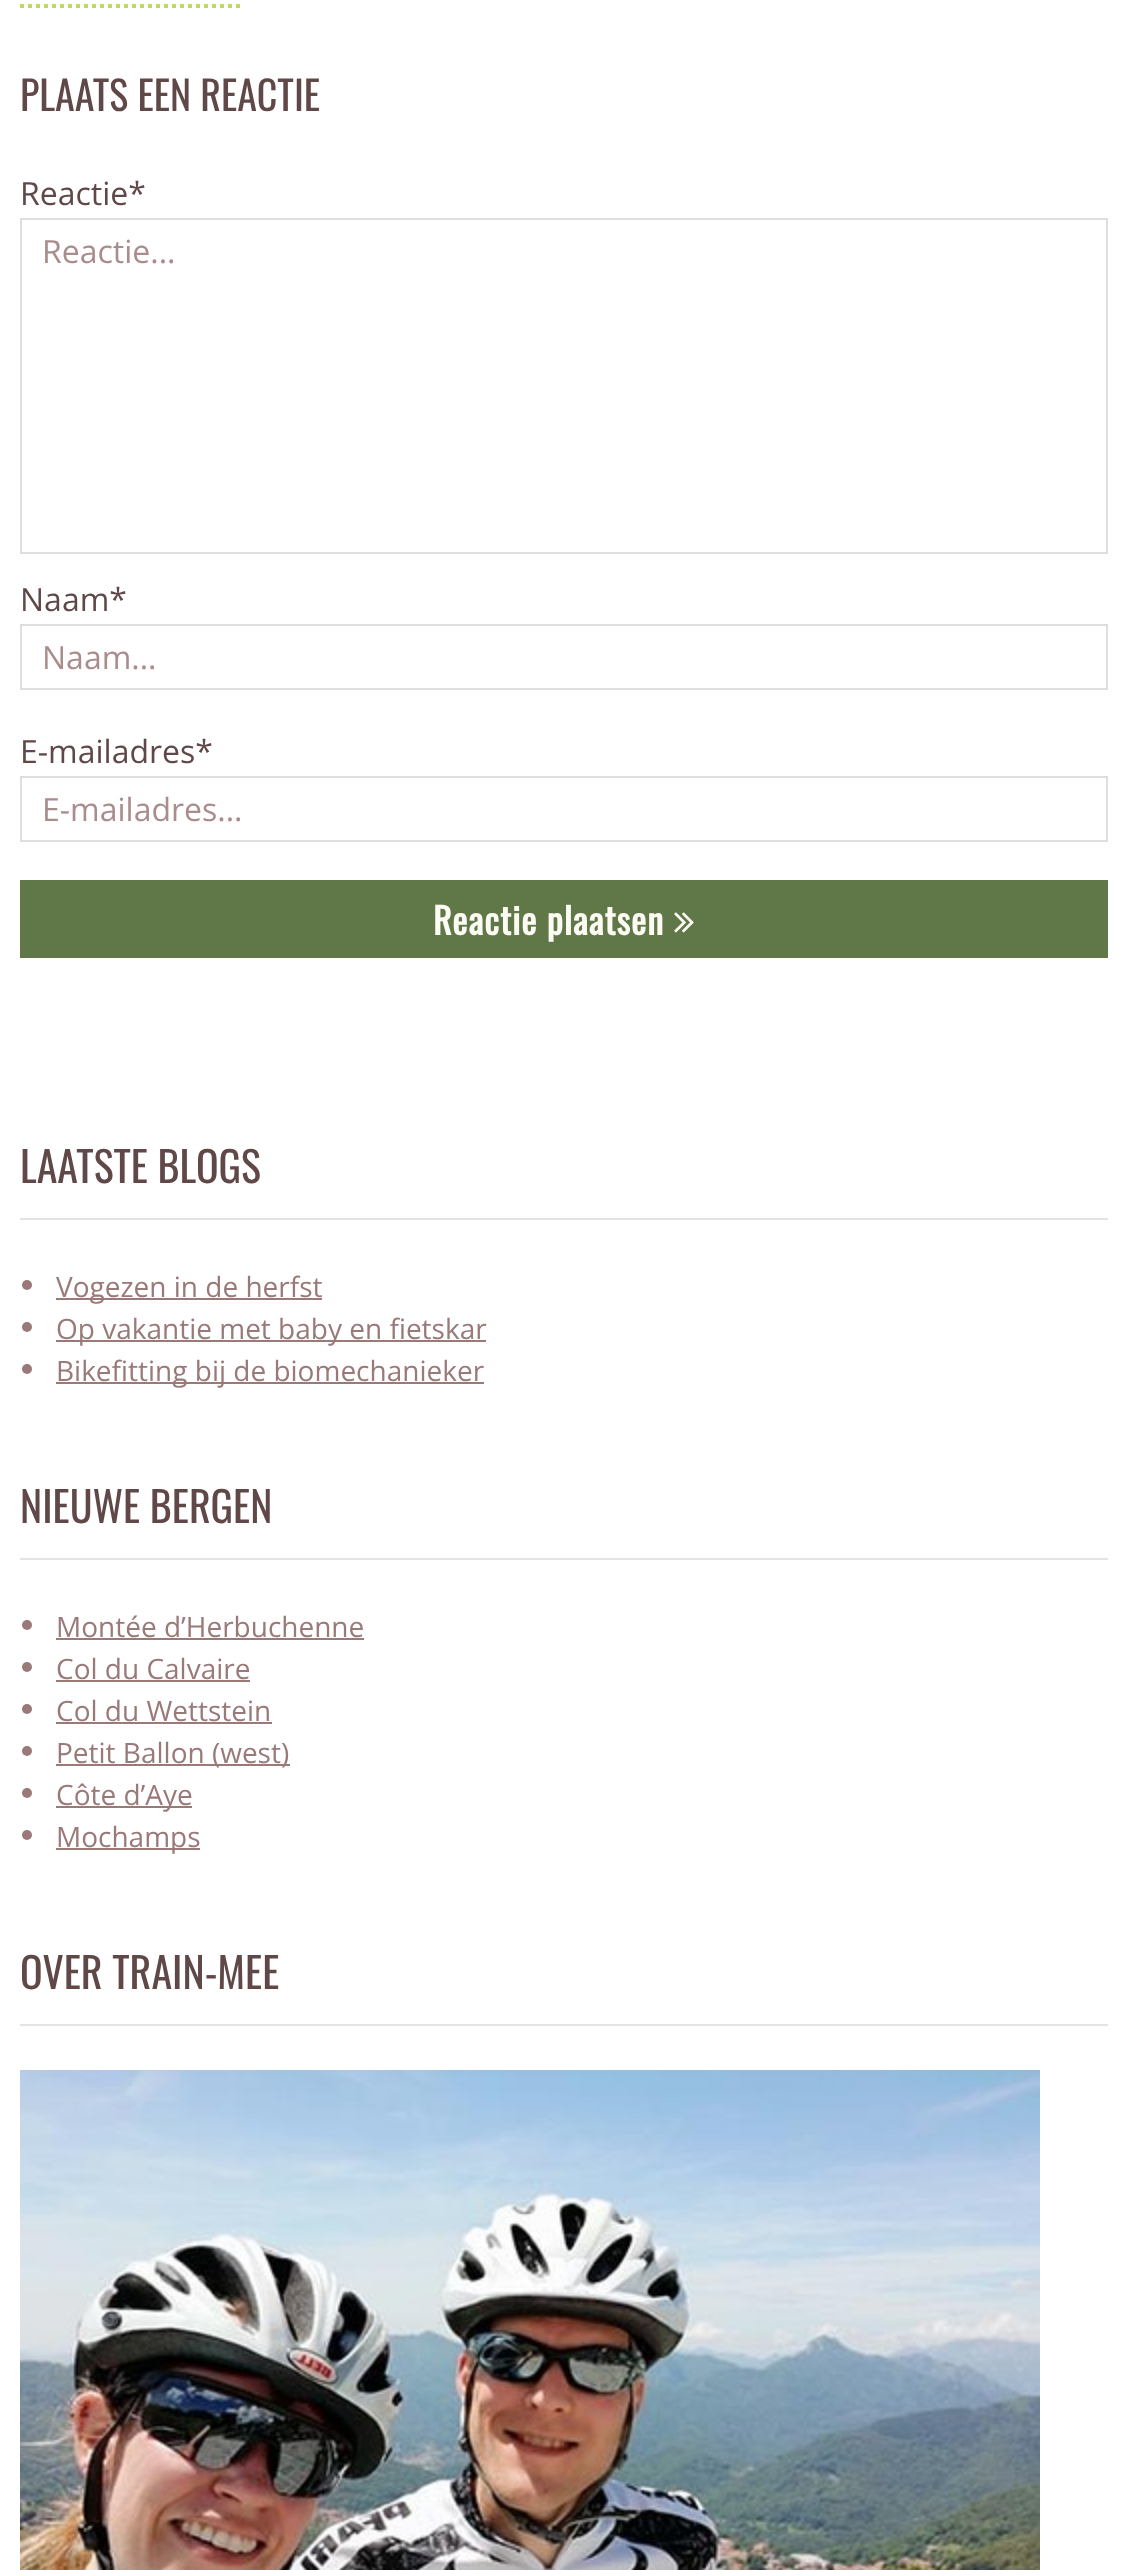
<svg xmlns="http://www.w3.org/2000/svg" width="1128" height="2570">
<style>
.a{font:40px Oswald;fill:#604848}
.b{font:32px Open Sans;fill:#604848}
.c{font:32px Open Sans;fill:#a98d8d}
.d{font:bold 36px Oswald;letter-spacing:1px;fill:#fbfbf4}
.e{font:42px Oswald;fill:#604848}
.f{font:28px Open Sans;fill:#9a7979}
</style>
<rect width="100%" height="100%" fill="#fff"/>
<path fill="none" stroke="#c0d860" stroke-width="4" stroke-dasharray="4 4" d="M20 6h220"/>
<path fill="none" stroke="#dedede" stroke-width="2" d="M21 219h1086v334H21z"/>
<path fill="none" stroke="#dedede" stroke-width="2" d="M21 625h1086v64H21z"/>
<path fill="none" stroke="#dedede" stroke-width="2" d="M21 777h1086v64H21z"/>
<path fill="#607848" d="M20 880h1088v78H20z"/>
<image href="1.png" x="674" y="912" width="20" height="21"/>
<path fill="#e4e4e4" d="M20 1218h1088v2H20z"/>
<circle fill="#9a7979" cx="27" cy="1285" r="5"/>
<path fill="#9a7979" d="M56 1298h266v2H56z"/>
<circle fill="#9a7979" cx="27" cy="1327" r="5"/>
<path fill="#9a7979" d="M56 1340h430v2H56z"/>
<circle fill="#9a7979" cx="27" cy="1369" r="5"/>
<path fill="#9a7979" d="M56 1382h428v2H56z"/>
<path fill="#e4e4e4" d="M20 1558h1088v2H20z"/>
<circle fill="#9a7979" cx="27" cy="1625" r="5"/>
<path fill="#9a7979" d="M56 1638h308v2H56z"/>
<circle fill="#9a7979" cx="27" cy="1667" r="5"/>
<path fill="#9a7979" d="M56 1680h194v2H56z"/>
<circle fill="#9a7979" cx="27" cy="1709" r="5"/>
<path fill="#9a7979" d="M56 1722h216v2H56z"/>
<circle fill="#9a7979" cx="27" cy="1751" r="5"/>
<path fill="#9a7979" d="M56 1764h234v2H56z"/>
<circle fill="#9a7979" cx="27" cy="1793" r="5"/>
<path fill="#9a7979" d="M56 1806h136v2H56z"/>
<circle fill="#9a7979" cx="27" cy="1835" r="5"/>
<path fill="#9a7979" d="M56 1848h144v2H56z"/>
<path fill="#e4e4e4" d="M20 2024h1088v2H20z"/>
<image href="2.png" x="20" y="2070" width="1020" height="500"/>
<text class="a" x="20" y="111">PLAATS EEN REACTIE</text>
<text class="b" x="20" y="205">Reactie*</text>
<text class="c" x="42" y="263">Reactie...</text>
<text class="b" x="20" y="611">Naam*</text>
<text class="c" x="42" y="669">Naam...</text>
<text class="b" x="20" y="763">E-mailadres*</text>
<text class="c" x="42" y="821">E-mailadres...</text>
<text class="d" x="433" y="935">Reactie plaatsen</text>
<text class="e" x="20" y="1183">LAATSTE BLOGS</text>
<text class="f" x="56" y="1297">Vogezen in de herfst</text>
<text class="f" x="56" y="1339">Op vakantie met baby en fietskar</text>
<text class="f" x="56" y="1381">Bikefitting bij de biomechanieker</text>
<text class="e" x="20" y="1523">NIEUWE BERGEN</text>
<text class="f" x="56" y="1637">Montée d’Herbuchenne</text>
<text class="f" x="56" y="1679">Col du Calvaire</text>
<text class="f" x="56" y="1721">Col du Wettstein</text>
<text class="f" x="56" y="1763">Petit Ballon (west)</text>
<text class="f" x="56" y="1805">Côte d’Aye</text>
<text class="f" x="56" y="1847">Mochamps</text>
<text class="e" x="20" y="1989">OVER TRAIN-MEE</text>
</svg>
